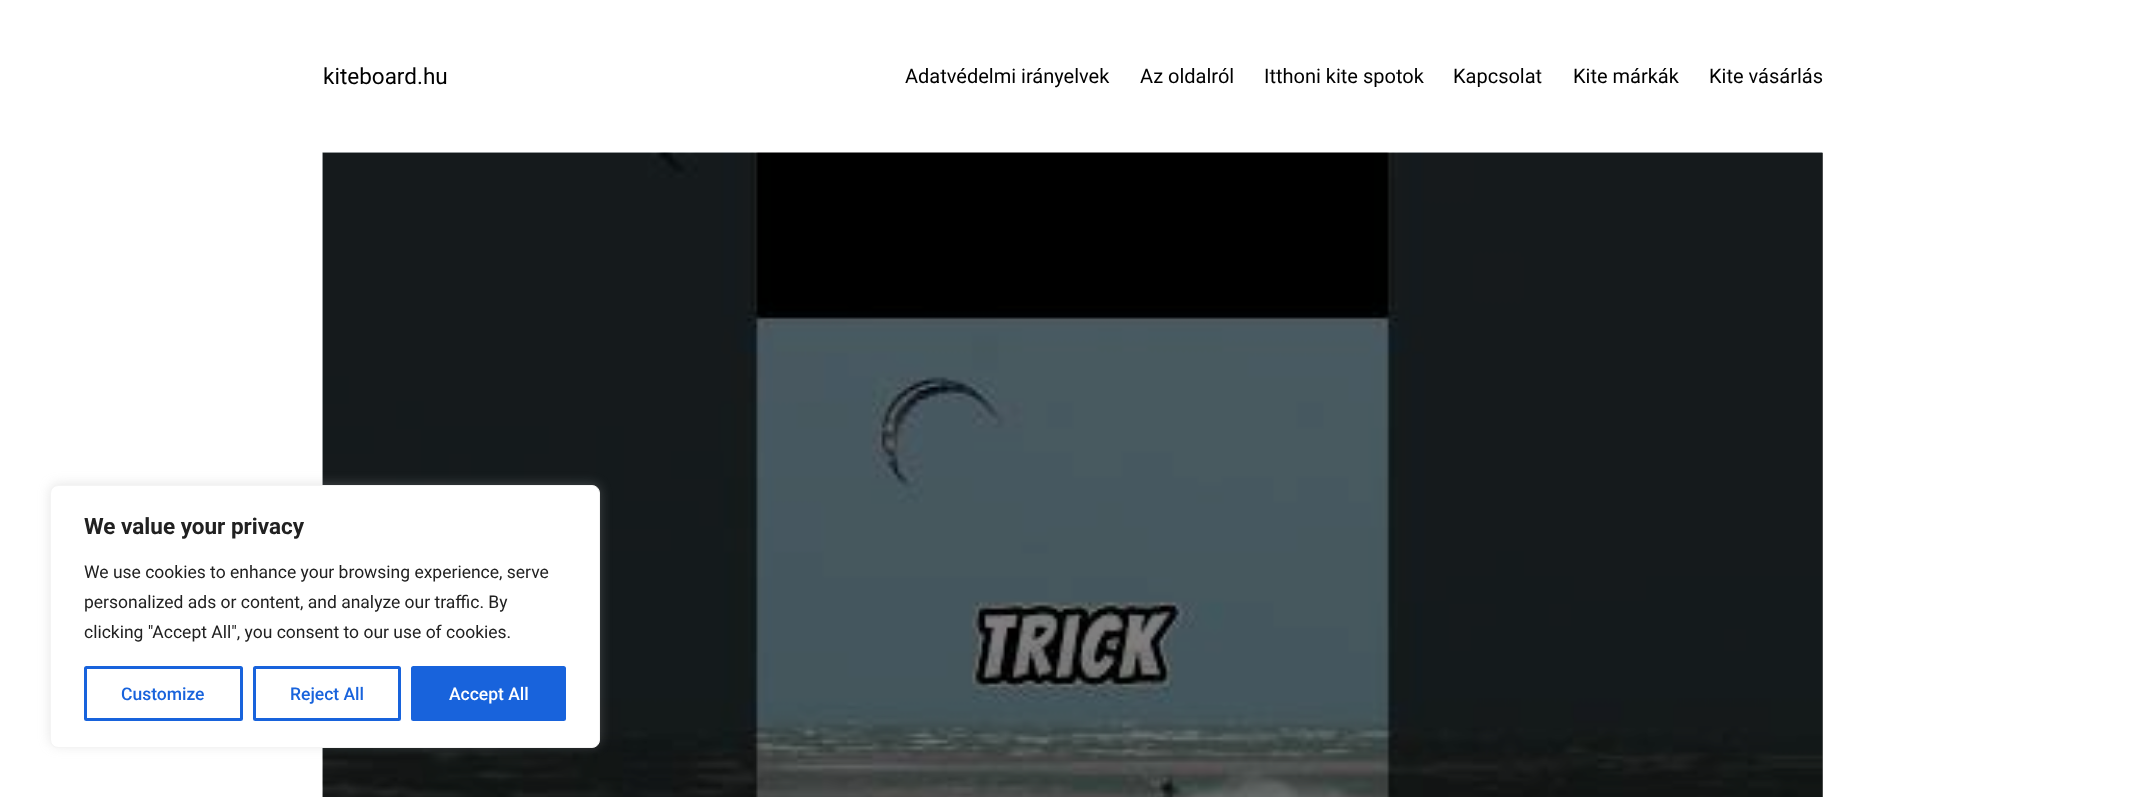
<svg xmlns="http://www.w3.org/2000/svg" width="2144" height="797">
<style>
.a{font:22.5px Roboto;fill:#000}
.b{font:20px Roboto;fill:#000}
.c{font:bold 22.5px Roboto;fill:#212121}
.d{font:17.5px Roboto;fill:#212121}
.e{font:500 17.5px Roboto;fill:#1863dc}
.f{font:500 17.5px Roboto;fill:#fff}
</style>
<rect width="100%" height="100%" fill="#fff"/>
<path fill="#808080" d="M1822 153h1v644H1822z"/>
<image href="1.png" x="322" y="152" width="1501" height="645"/>
<rect fill="#acabab4d" filter="blur(6px)" x="50" y="484" width="550" height="262" rx="8"/>
<rect fill="#fff" stroke="#f4f4f4" x="50.5" y="485.5" width="549" height="262" rx="7.5"/>
<rect fill="none" stroke="#1863dc" stroke-width="3" x="85.5" y="667.5" width="156" height="52" rx="1"/>
<rect fill="none" stroke="#1863dc" stroke-width="3" x="254.5" y="667.5" width="145" height="52" rx="1"/>
<rect fill="#1863dc" stroke="#1863dc" stroke-width="3" x="412.5" y="667.5" width="152" height="52" rx="1"/>
<text class="a" x="323" y="84">kiteboard.hu</text>
<text class="b" x="905" y="83">Adatvédelmi irányelvek</text>
<text class="b" x="1140" y="83">Az oldalról</text>
<text class="b" x="1264" y="83">Itthoni kite spotok</text>
<text class="b" x="1453" y="83">Kapcsolat</text>
<text class="b" x="1573" y="83">Kite márkák</text>
<text class="b" x="1709" y="83">Kite vásárlás</text>
<text class="c" x="84" y="534">We value your privacy</text>
<text class="d" x="84" y="578">We use cookies to enhance your browsing experience, serve</text>
<text class="d" x="84" y="608">personalized ads or content, and analyze our traffic. By</text>
<text class="d" x="84" y="638">clicking "Accept All", you consent to our use of cookies.</text>
<text class="e" x="121" y="700">Customize</text>
<text class="e" x="290" y="700">Reject All</text>
<text class="f" x="449" y="700">Accept All</text>
</svg>
